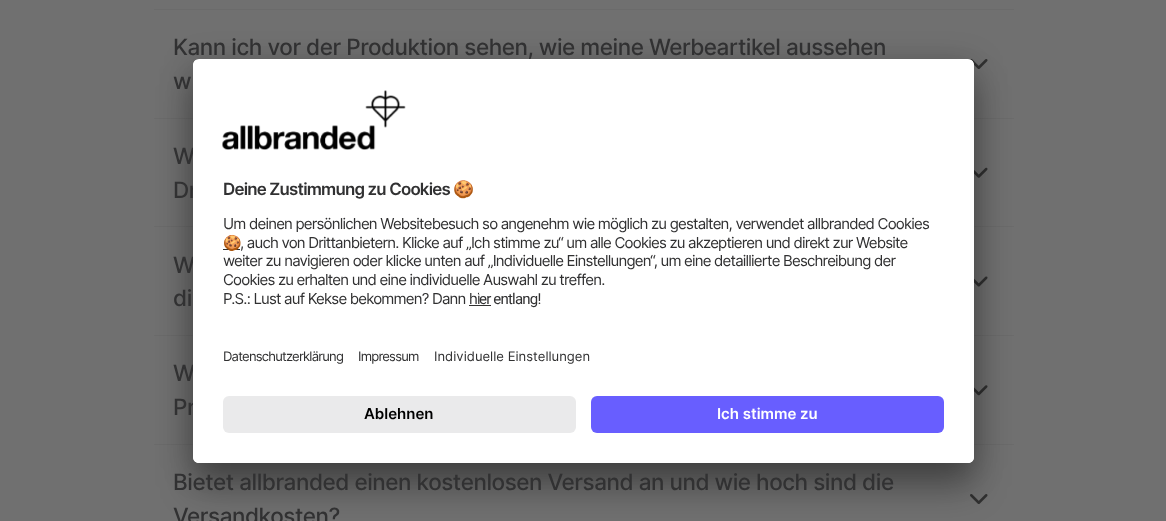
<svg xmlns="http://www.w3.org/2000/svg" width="1166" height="521">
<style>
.a{font:500 22.5px Inter;letter-spacing:-0.45px;fill:#313132}
.b{font:600 16.9px Inter;letter-spacing:-0.8px;fill:#313132}
.c{font:bold 16.9px Noto Color Emoji;letter-spacing:-0.8px;fill:#313132}
.d{font:15px Inter;letter-spacing:-0.8px;fill:#313132}
.e{font:15px Noto Color Emoji;letter-spacing:-0.8px;fill:#313132}
.f{font:15px Roboto;letter-spacing:-0.8px;fill:#313132}
.g{font:13.1px Inter;letter-spacing:-0.8px;fill:#313132}
.h{font:13.1px Inter;fill:#313132}
.i{font:600 15px Inter;fill:#000}
.j{font:600 15px Inter;fill:#fff}
</style>
<defs>
<clipPath id="clip1"><rect x="193" y="59" width="781" height="404" rx="6"/></clipPath>
<clipPath id="clip2"><path d="M199 59h769c3.5 0 6 2.5 6 6v321h-781v-321c0-3.5 2.5-6 6-6z"/></clipPath>
<clipPath id="clip3"><path d="M223 209h721v105H223z"/></clipPath>
</defs>
<rect width="100%" height="100%" fill="#707070"/>
<path fill="#6b6b6b" d="M154 9h860v1H154z"/>
<path fill="#6b6b6b" d="M154 118h860v1H154z"/>
<image href="1.png" x="970" y="59" width="18" height="10"/>
<path fill="#6b6b6b" d="M154 226h860v1H154z"/>
<image href="2.png" x="974" y="167" width="14" height="11"/>
<path fill="#6b6b6b" d="M154 335h860v1H154z"/>
<image href="3.png" x="974" y="276" width="14" height="11"/>
<path fill="#6b6b6b" d="M154 444h860v1H154z"/>
<image href="4.png" x="974" y="385" width="14" height="11"/>
<image href="1.png" x="970" y="494" width="18" height="10"/>
<rect fill="#0000004d" filter="blur(17.5px)" x="193" y="84" width="781" height="404" rx="6"/>
<rect fill="#00000038" filter="blur(16px)" x="193" y="65" width="781" height="404" rx="6"/>
<text class="a" x="173" y="55">Kann ich vor der Produktion sehen, wie meine Werbeartikel aussehen</text>
<text class="a" x="173" y="89">w</text>
<text class="a" x="173" y="164">W</text>
<text class="a" x="173" y="198">Dr</text>
<text class="a" x="173" y="273">W</text>
<text class="a" x="173" y="306">di</text>
<text class="a" x="173" y="381">W</text>
<text class="a" x="173" y="415">Pr</text>
<text class="a" x="173" y="490">Bietet allbranded einen kostenlosen Versand an und wie hoch sind die</text>
<text class="a" x="173" y="524">Versandkosten?</text>
<rect fill="#fff" x="193" y="59" width="781" height="404" rx="6"/>
<g clip-path="url(#clip1)">
<g clip-path="url(#clip2)">
<path fill="#fff" d="M193 60h781v326H193z"/>
</g>
</g>
<image href="5.png" x="222" y="90" width="184" height="60"/>
<text class="b" x="223" y="195">Deine Zustimmung zu Cookies</text>
<text class="c" x="453" y="195">🍪</text>
<text class="d" x="223" y="229">Um deinen persönlichen Websitebesuch so angenehm wie möglich zu gestalten, verwendet allbranded Cookies</text>
<path fill="#303030" d="M223 249h17v1H223z"/>
<g clip-path="url(#clip3)">
<text class="e" x="223" y="248">🍪</text>
</g>
<text class="d" x="240" y="248">, auch von Drittanbietern. Klicke auf „Ich stimme zu“ um alle Cookies zu akzeptieren und direkt zur Website</text>
<text class="d" x="223" y="266">weiter zu navigieren oder klicke unten auf „Individuelle Einstellungen“, um eine detaillierte Beschreibung der</text>
<text class="d" x="223" y="285">Cookies zu erhalten und eine individuelle Auswahl zu treffen.</text>
<text class="d" x="223" y="304">P.S.: Lust auf Kekse bekommen? Dann hi</text>
<path fill="#fff" d="M479 293h1v1H479z"/>
<path fill="#303030" d="M469 305h22v1H469z"/>
<text class="f" x="479" y="304">er entlang!</text>
<text class="g" x="223" y="361">Datenschutzerklärung</text>
<text class="g" x="358" y="361">Impressum</text>
<text class="h" x="434" y="361">Individuelle Einstellungen</text>
<path fill="#fff" d="M193 386h781v71c0 3.5-2.5 6-6 6h-769c-3.5 0-6-2.5-6-6z"/>
<rect fill="#eaeaeb" x="223" y="396" width="353" height="37" rx="6"/>
<text class="i" x="364" y="419">Ablehnen</text>
<rect fill="#685eff" x="591" y="396" width="353" height="37" rx="6"/>
<text class="j" x="717" y="419">Ich stimme zu</text>
</svg>
